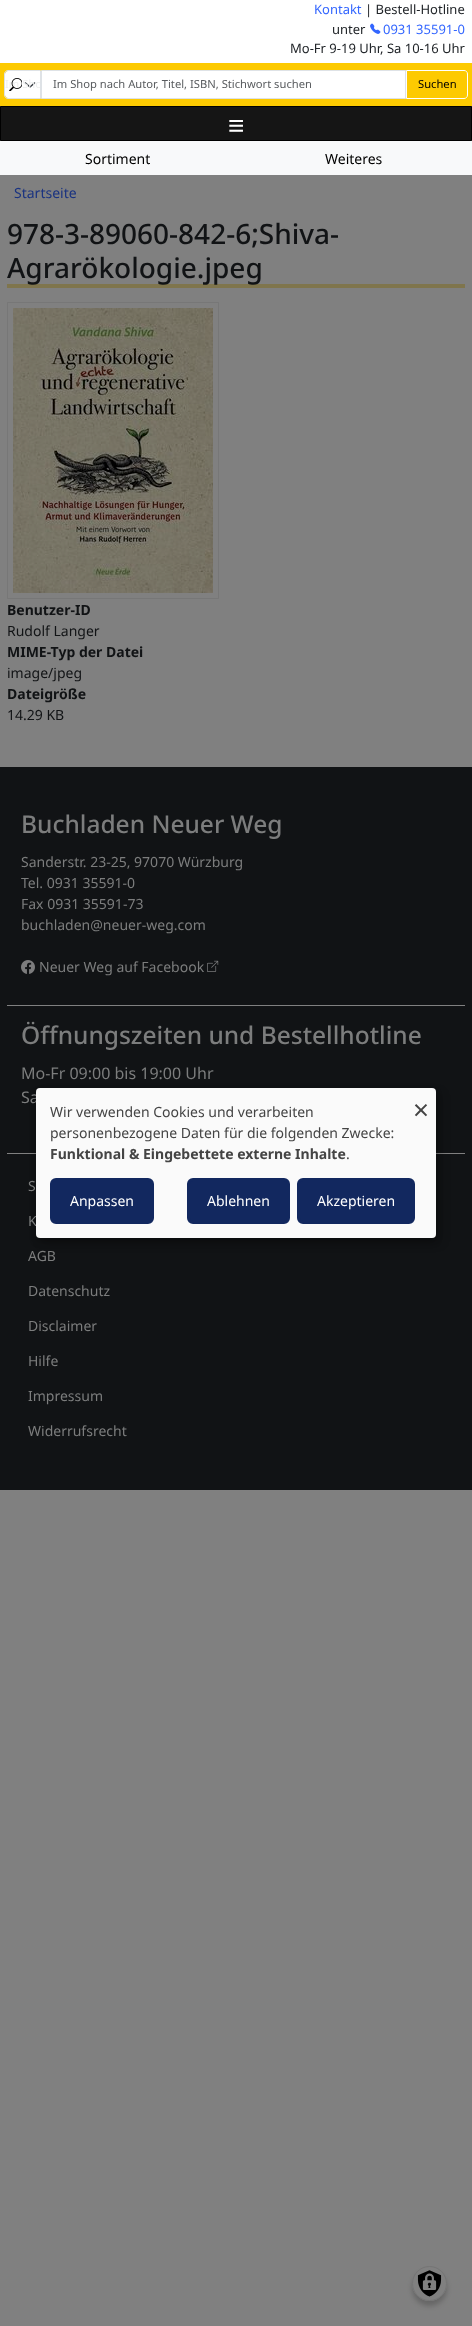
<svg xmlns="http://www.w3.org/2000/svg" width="472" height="2326">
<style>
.a{font:13px Noto Sans;fill:#36f}
.b{font:13px Noto Sans;fill:#212529}
.c{font:11.2px Noto Sans;fill:#eeefef}
.d{font:11.2px Noto Sans;fill:#595c5f}
.e{font:11.2px Noto Sans;fill:#000}
.f{font:bold 28px Liberation Sans;fill:#fff}
.g{font:14px Noto Sans;fill:#000}
.h{font:14px Noto Sans;fill:#1a3380}
.i{font:500 28px Noto Sans;fill:#111315}
.j{font:bold 14px Noto Sans;fill:#111315}
.k{font:14px Noto Sans;fill:#111315}
.l{font:500 24.5px Noto Sans;fill:#7c7d7d}
.m{font:14px Noto Sans;fill:#7c7d7d}
.n{font:16px Noto Sans;fill:#7c7d7d}
.o{font:14px Noto Sans;fill:#444}
.p{font:bold 14px Noto Sans;fill:#444}
.q{font:14px Noto Sans;fill:#fff}
.r{font:28px Noto Sans;fill:#444}
</style>
<defs>
<clipPath id="clip1"><path d="M5 76h35v17H5z"/></clipPath>
</defs>
<rect width="100%" height="100%" fill="#808080"/>
<path fill="#fdca01" d="M0 63h472v43H0z"/>
<path fill="#fff" d="M0 0h472v63H0z"/>
<image href="1.png" x="370" y="23" width="11" height="11"/>
<path fill="#fff" d="M8 71h32v27h-32c-1.5 0-3-1.5-3-3v-21c0-1.5 1.5-3 3-3z"/>
<path fill="none" stroke="#343a40" stroke-width="1.5" stroke-linecap="round" stroke-linejoin="round" d="M25.5 83l4.5 4l4.5-4"/>
<path fill="none" stroke="#dee2e6" d="M8 70.5h32.5v28h-32.5c-2 0-3.5-1.5-3.5-3.5v-21c0-2 1.5-3.5 3.5-3.5z"/>
<path fill="#fff" stroke="#dee2e6" d="M41.5 70.5h364v28H41.5z"/>
<path fill="none" stroke="#fff" d="M406.5 70.5h57.5c2 0 3.5 1.5 3.5 3.5v21c0 2-1.5 3.5-3.5 3.5h-57.5z"/>
<path fill="#151515" stroke="#000" d="M0.5 106.5h471v34H0.5z"/>
<path fill="#f8f9fa" d="M0 141h472v34H0z"/>
<path fill="#7f754d" d="M7 284h458v4H7z"/>
<path fill="none" stroke="#777" d="M7.5 302.5h211v296H7.5z"/>
<image href="3.png" x="13" y="308" width="200" height="285"/>
<path fill="#111315" d="M0 767h472v723H0z"/>
<image href="4.png" x="21" y="960" width="14" height="14"/>
<image href="5.png" x="207" y="960" width="12" height="12"/>
<path fill="#808080" d="M7 1005h458v1H7z"/>
<path fill="#808080" d="M7 1153h458v1H7z"/>
<rect fill="#00000030" filter="blur(5px)" x="41" y="1093" width="400" height="150" rx="4"/>
<rect fill="#00000033" filter="blur(3px)" x="36" y="1092" width="400" height="150" rx="4"/>
<rect fill="#00000033" filter="blur(2.5px)" x="412" y="2271" width="35" height="35" rx="17.5"/>
<circle fill="#808080" cx="429.5" cy="2283.5" r="17.5"/>
<image href="6.png" x="417" y="2270" width="25" height="27"/>
<circle fill="none" stroke="#757575" cx="429.5" cy="2283.5" r="17"/>
<text class="a" x="314" y="14">Kontakt</text>
<text class="b" x="365" y="14">| Bestell-Hotline</text>
<text class="b" x="332" y="34">unter</text>
<text class="a" x="383" y="34">0931 35591-0</text>
<text class="b" x="290" y="53">Mo-Fr 9-19 Uhr, Sa 10-16 Uhr</text>
<g clip-path="url(#clip1)">
<text class="c" x="5" y="88">Im Sho</text>
</g>
<image href="2.png" x="9" y="78" width="13" height="13"/>
<text class="d" x="53" y="88">Im Shop nach Autor, Titel, ISBN, Stichwort suchen</text>
<text class="e" x="418" y="88">Suchen</text>
<text class="f" x="228" y="135">≡</text>
<text class="g" x="85" y="164">Sortiment</text>
<text class="g" x="325" y="164">Weiteres</text>
<text class="h" x="14" y="198">Startseite</text>
<text class="i" x="7" y="244">978-3-89060-842-6;Shiva-</text>
<text class="i" x="7" y="278">Agrarökologie.jpeg</text>
<text class="j" x="7" y="615">Benutzer-ID</text>
<text class="k" x="7" y="636">Rudolf Langer</text>
<text class="j" x="7" y="657">MIME-Typ der Datei</text>
<text class="k" x="7" y="678">image/jpeg</text>
<text class="j" x="7" y="699">Dateigröße</text>
<text class="k" x="7" y="720">14.29 KB</text>
<text class="l" x="21" y="833">Buchladen Neuer Weg</text>
<text class="m" x="21" y="867">Sanderstr. 23-25, 97070 Würzburg</text>
<text class="m" x="21" y="888">Tel. 0931 35591-0</text>
<text class="m" x="21" y="909">Fax 0931 35591-73</text>
<text class="m" x="21" y="930">buchladen@neuer-weg.com</text>
<text class="m" x="39" y="972">Neuer Weg auf Facebook</text>
<text class="l" x="21" y="1044">Öffnungszeiten und Bestellhotline</text>
<text class="n" x="21" y="1079">Mo-Fr 09:00 bis 19:00 Uhr</text>
<text class="n" x="21" y="1103">Sa</text>
<text class="m" x="28" y="1191">S</text>
<text class="m" x="28" y="1226">K</text>
<text class="m" x="28" y="1261">AGB</text>
<text class="m" x="28" y="1296">Datenschutz</text>
<text class="m" x="28" y="1331">Disclaimer</text>
<text class="m" x="28" y="1366">Hilfe</text>
<text class="m" x="28" y="1401">Impressum</text>
<text class="m" x="28" y="1436">Widerrufsrecht</text>
<rect fill="#fafafa" x="36" y="1088" width="400" height="150" rx="4"/>
<text class="o" x="50" y="1117">Wir verwenden Cookies und verarbeiten</text>
<text class="o" x="50" y="1138">personenbezogene Daten für die folgenden Zwecke:</text>
<text class="p" x="50" y="1159">Funktional &amp; Eingebettete externe Inhalte</text>
<text class="o" x="346" y="1159">.</text>
<rect fill="#12285f" stroke="#12285f" stroke-width="3" x="51.5" y="1179.5" width="101" height="43" rx="4.5"/>
<text class="q" x="70" y="1206">Anpassen</text>
<rect fill="#12285f" stroke="#12285f" stroke-width="3" x="188.5" y="1179.5" width="100" height="43" rx="4.5"/>
<text class="q" x="207" y="1206">Ablehnen</text>
<rect fill="#12285f" stroke="#12285f" stroke-width="3" x="298.5" y="1179.5" width="115" height="43" rx="4.5"/>
<text class="q" x="317" y="1206">Akzeptieren</text>
<text class="r" x="413" y="1120">×</text>
</svg>
